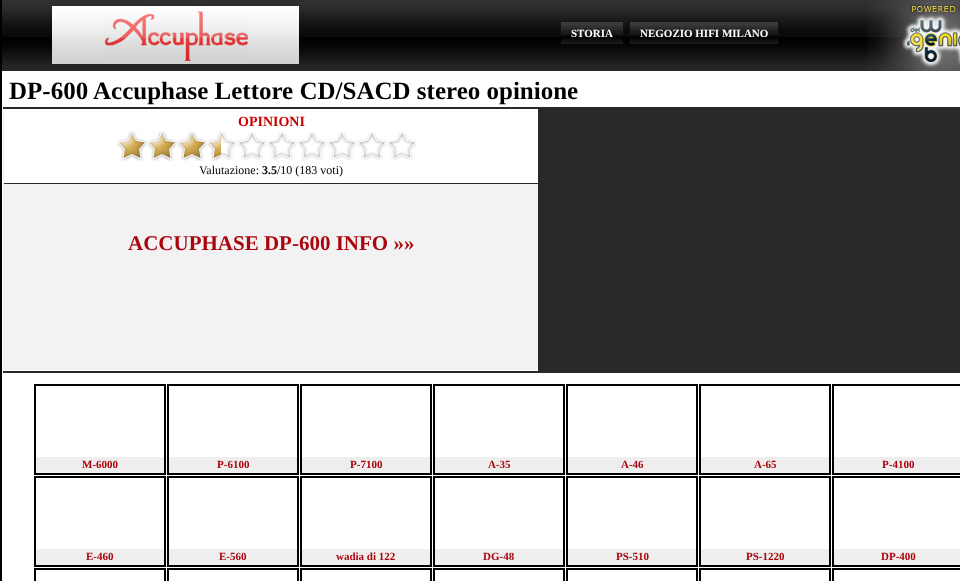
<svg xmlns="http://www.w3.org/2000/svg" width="960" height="581">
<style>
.a{font:bold 11px Liberation Serif;fill:#fff}
.b{font:bold 25px Liberation Serif;fill:#000}
.c{font:bold 14px Liberation Serif;fill:#c00}
.d{font:12px Liberation Serif;fill:#000}
.e{font:bold 12px Liberation Serif;fill:#000}
.f{font:bold 21px Liberation Serif;fill:#aa050c}
.g{font:bold 11px Liberation Serif;fill:#aa050c}
</style>
<rect width="100%" height="100%" fill="#000"/>
<image href="1.png" x="2" y="0" width="865" height="71"/>
<image href="2.png" x="52" y="6" width="247" height="58"/>
<image href="3.png" x="561" y="22" width="62" height="22"/>
<image href="4.png" x="630" y="22" width="148" height="22"/>
<image href="5.png" x="867" y="0" width="93" height="71"/>
<path fill="#fff" d="M2 71h958v510H2z"/>
<path fill="#f2f2f2" d="M3 109h1v262H3z"/>
<path fill="#282828" d="M3 371h535v2H3z"/>
<path fill="#282828" d="M3 107h957v2H3z"/>
<path fill="#282828" d="M4 183h534v1H4z"/>
<image href="6.png" x="221" y="131" width="196" height="30"/>
<image href="7.png" x="117" y="131" width="104" height="30"/>
<path fill="#f2f2f2" d="M4 184h534v186H4z"/>
<path fill="#282828" d="M538 109h422v264H538z"/>
<path fill="none" stroke="#000" stroke-width="2" d="M35 385h130v89H35z"/>
<path fill="#eee" d="M36 457h128v16H36z"/>
<path fill="none" stroke="#000" stroke-width="2" d="M168 385h130v89H168z"/>
<path fill="#eee" d="M169 457h128v16H169z"/>
<path fill="none" stroke="#000" stroke-width="2" d="M301 385h130v89H301z"/>
<path fill="#eee" d="M302 457h128v16H302z"/>
<path fill="none" stroke="#000" stroke-width="2" d="M434 385h130v89H434z"/>
<path fill="#eee" d="M435 457h128v16H435z"/>
<path fill="none" stroke="#000" stroke-width="2" d="M567 385h130v89H567z"/>
<path fill="#eee" d="M568 457h128v16H568z"/>
<path fill="none" stroke="#000" stroke-width="2" d="M700 385h130v89H700z"/>
<path fill="#eee" d="M701 457h128v16H701z"/>
<path fill="none" stroke="#000" stroke-width="2" d="M833 385h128v89H833z"/>
<path fill="#eee" d="M834 457h126v16H834z"/>
<path fill="none" stroke="#000" stroke-width="2" d="M35 477h130v89H35z"/>
<path fill="#eee" d="M36 549h128v16H36z"/>
<path fill="none" stroke="#000" stroke-width="2" d="M168 477h130v89H168z"/>
<path fill="#eee" d="M169 549h128v16H169z"/>
<path fill="none" stroke="#000" stroke-width="2" d="M301 477h130v89H301z"/>
<path fill="#eee" d="M302 549h128v16H302z"/>
<path fill="none" stroke="#000" stroke-width="2" d="M434 477h130v89H434z"/>
<path fill="#eee" d="M435 549h128v16H435z"/>
<path fill="none" stroke="#000" stroke-width="2" d="M567 477h130v89H567z"/>
<path fill="#eee" d="M568 549h128v16H568z"/>
<path fill="none" stroke="#000" stroke-width="2" d="M700 477h130v89H700z"/>
<path fill="#eee" d="M701 549h128v16H701z"/>
<path fill="none" stroke="#000" stroke-width="2" d="M833 477h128v89H833z"/>
<path fill="#eee" d="M834 549h126v16H834z"/>
<path fill="none" stroke="#000" stroke-width="2" d="M35 569h130v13H35z"/>
<path fill="none" stroke="#000" stroke-width="2" d="M168 569h130v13H168z"/>
<path fill="none" stroke="#000" stroke-width="2" d="M301 569h130v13H301z"/>
<path fill="none" stroke="#000" stroke-width="2" d="M434 569h130v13H434z"/>
<path fill="none" stroke="#000" stroke-width="2" d="M567 569h130v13H567z"/>
<path fill="none" stroke="#000" stroke-width="2" d="M700 569h130v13H700z"/>
<path fill="none" stroke="#000" stroke-width="2" d="M833 569h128v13H833z"/>
<text class="a" x="571" y="37">STORIA</text>
<text class="a" x="640" y="37">NEGOZIO HIFI MILANO</text>
<text class="b" x="9" y="99">DP-600 Accuphase Lettore CD/SACD stereo opinione</text>
<text class="c" x="238" y="126">OPINIONI</text>
<text class="d" x="199" y="174">Valutazione:</text>
<text class="e" x="262" y="174">3.5</text>
<text class="d" x="277" y="174">/10 (183 voti)</text>
<text class="f" x="128" y="250">ACCUPHASE DP-600 INFO »»</text>
<text class="g" x="82" y="468">M-6000</text>
<text class="g" x="217" y="468">P-6100</text>
<text class="g" x="350" y="468">P-7100</text>
<text class="g" x="488" y="468">A-35</text>
<text class="g" x="621" y="468">A-46</text>
<text class="g" x="754" y="468">A-65</text>
<text class="g" x="882" y="468">P-4100</text>
<text class="g" x="86" y="560">E-460</text>
<text class="g" x="219" y="560">E-560</text>
<text class="g" x="336" y="560">wadia di 122</text>
<text class="g" x="483" y="560">DG-48</text>
<text class="g" x="616" y="560">PS-510</text>
<text class="g" x="746" y="560">PS-1220</text>
<text class="g" x="881" y="560">DP-400</text>
</svg>
